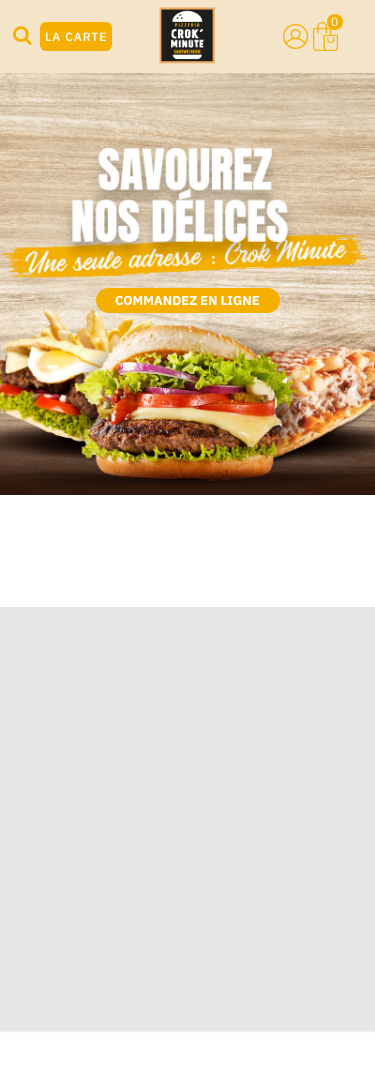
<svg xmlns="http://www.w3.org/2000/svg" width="375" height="1070">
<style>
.a{font:12px IBM Plex Sans;fill:#fff}
.b{font:500 12px IBM Plex Sans;letter-spacing:1px;fill:#fff}
.c{font:bold 13px IBM Plex Sans;fill:#fff}
</style>
<rect width="100%" height="100%" fill="#fff"/>
<path fill="#f5e5c8" d="M0 0h375v73H0z"/>
<image href="1.png" x="159" y="7" width="56" height="57"/>
<image href="2.png" x="313" y="22" width="25" height="29"/>
<circle fill="#f4af00" cx="335" cy="22" r="8"/>
<image href="3.png" x="283" y="24" width="25" height="25"/>
<image href="4.png" x="13" y="26" width="19" height="19"/>
<rect fill="#f4af00" x="40" y="22" width="72" height="29" rx="6"/>
<image href="5.png" x="0" y="73" width="375" height="422"/>
<rect fill="#f4af00" x="96" y="288" width="184" height="25" rx="12.5"/>
<image href="6.png" x="0" y="607" width="375" height="426"/>
<text class="a" x="331" y="26">0</text>
<text class="b" x="45" y="41">LA CARTE</text>
<text class="c" x="115" y="305">COMMANDEZ EN LIGNE</text>
</svg>
